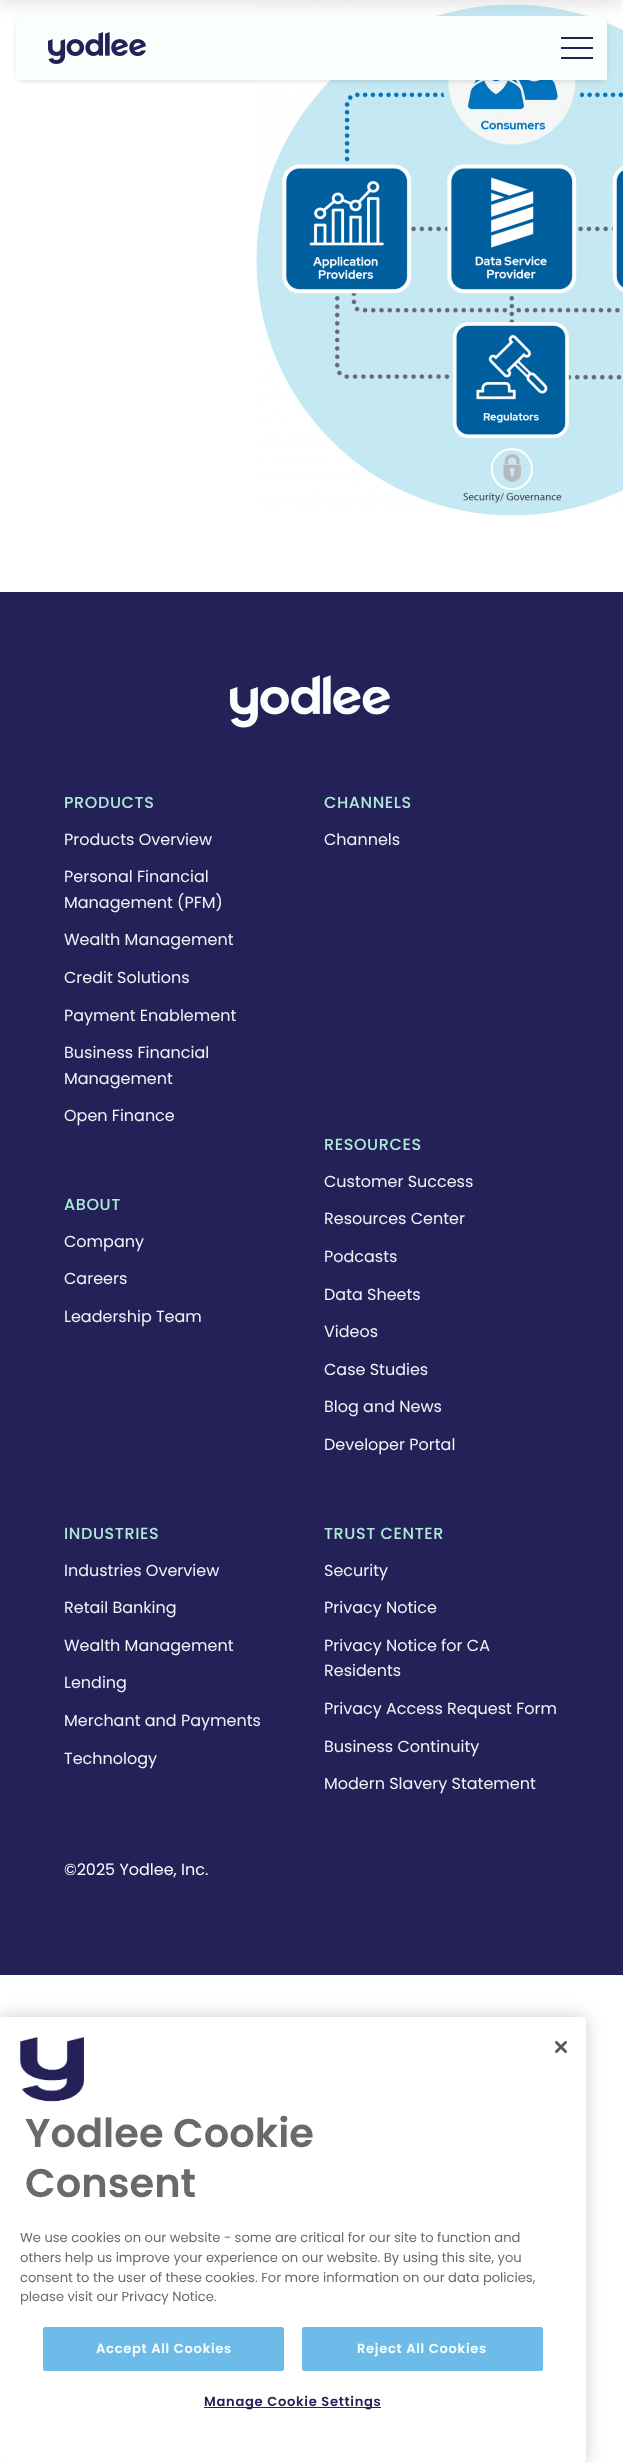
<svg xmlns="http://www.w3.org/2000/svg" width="623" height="2463">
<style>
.a{font:500 16px Poppins;letter-spacing:0.6px;fill:#aeead7}
.b{font:16px Poppins;fill:#f4f2f7}
.c{font:16px Poppins;fill:#fafffd}
.d{font:600 40px Poppins;fill:#696969}
.e{font:13.1px Poppins;fill:#696969}
.f{font:600 13.1px Poppins;letter-spacing:0.7px;fill:#fafffd}
.g{font:600 13.1px Poppins;letter-spacing:0.7px;fill:#242159}
</style>
<rect width="100%" height="100%" fill="#fff"/>
<image href="1.png" x="256" y="4" width="367" height="512"/>
<rect fill="#0000001a" filter="blur(2px)" x="16" y="18" width="591" height="64" rx="8"/>
<path fill="#fafffd" d="M24 16h575c4.5 0 8 3.5 8 8v56h-591v-56c0-4.5 3.5-8 8-8z"/>
<path fill="#0000001a" filter="blur(7.5px)" d="M0 -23h623v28H0z"/>
<image href="2.png" x="48" y="32" width="98" height="32"/>
<path fill="#242159" d="M561 37h32v2H561z"/>
<path fill="#242159" d="M561 47h32v2H561z"/>
<path fill="#242159" d="M561 57h32v2H561z"/>
<path fill="#242159" d="M0 592h623v1383H0z"/>
<image href="3.png" x="230" y="675" width="160" height="53"/>
<rect fill="#00000033" filter="blur(9px)" y="2017" width="586" height="446" rx="2.5"/>
<rect fill="#fff" y="2017" width="586" height="446" rx="2.5"/>
<image href="4.png" x="555" y="2041" width="12" height="12"/>
<image href="5.png" x="20" y="2037" width="64" height="65"/>
<rect fill="#6dbbe8" stroke="#6dbbe8" x="43.5" y="2327.5" width="240" height="43" rx="1.5"/>
<rect fill="#6dbbe8" stroke="#6dbbe8" x="302.5" y="2327.5" width="240" height="43" rx="1.5"/>
<path fill="#242159" d="M204 2407h177v1H204z"/>
<text class="a" x="64" y="808">PRODUCTS</text>
<text class="b" x="64" y="845">Products Overview</text>
<text class="b" x="64" y="882">Personal Financial</text>
<text class="b" x="64" y="908">Management (PFM)</text>
<text class="b" x="64" y="945">Wealth Management</text>
<text class="b" x="64" y="983">Credit Solutions</text>
<text class="b" x="64" y="1021">Payment Enablement</text>
<text class="b" x="64" y="1058">Business Financial</text>
<text class="b" x="64" y="1084">Management</text>
<text class="b" x="64" y="1121">Open Finance</text>
<text class="a" x="324" y="808">CHANNELS</text>
<text class="b" x="324" y="845">Channels</text>
<text class="a" x="64" y="1210">ABOUT</text>
<text class="b" x="64" y="1247">Company</text>
<text class="b" x="64" y="1284">Careers</text>
<text class="b" x="64" y="1322">Leadership Team</text>
<text class="a" x="324" y="1150">RESOURCES</text>
<text class="b" x="324" y="1187">Customer Success</text>
<text class="b" x="324" y="1224">Resources Center</text>
<text class="b" x="324" y="1262">Podcasts</text>
<text class="b" x="324" y="1300">Data Sheets</text>
<text class="b" x="324" y="1337">Videos</text>
<text class="b" x="324" y="1375">Case Studies</text>
<text class="b" x="324" y="1412">Blog and News</text>
<text class="b" x="324" y="1450">Developer Portal</text>
<text class="a" x="64" y="1539">INDUSTRIES</text>
<text class="b" x="64" y="1576">Industries Overview</text>
<text class="b" x="64" y="1613">Retail Banking</text>
<text class="b" x="64" y="1651">Wealth Management</text>
<text class="b" x="64" y="1688">Lending</text>
<text class="b" x="64" y="1726">Merchant and Payments</text>
<text class="b" x="64" y="1764">Technology</text>
<text class="a" x="324" y="1539">TRUST CENTER</text>
<text class="b" x="324" y="1576">Security</text>
<text class="b" x="324" y="1613">Privacy Notice</text>
<text class="b" x="324" y="1651">Privacy Notice for CA</text>
<text class="b" x="324" y="1676">Residents</text>
<text class="b" x="324" y="1714">Privacy Access Request Form</text>
<text class="b" x="324" y="1752">Business Continuity</text>
<text class="b" x="324" y="1789">Modern Slavery Statement</text>
<text class="c" x="64" y="1875">©2025 Yodlee, Inc.</text>
<text class="d" x="25" y="2147">Yodlee Cookie</text>
<text class="d" x="25" y="2197">Consent</text>
<text class="e" x="20" y="2242">We use cookies on our website - some are critical for our site to function and</text>
<text class="e" x="20" y="2262">others help us improve your experience on our website. By using this site, you</text>
<text class="e" x="20" y="2282">consent to the user of these cookies. For more information on our data policies,</text>
<text class="e" x="20" y="2301">please visit our Privacy Notice.</text>
<text class="f" x="96" y="2353">Accept All Cookies</text>
<text class="f" x="357" y="2353">Reject All Cookies</text>
<text class="g" x="204" y="2406">Manage Cookie Settings</text>
</svg>
